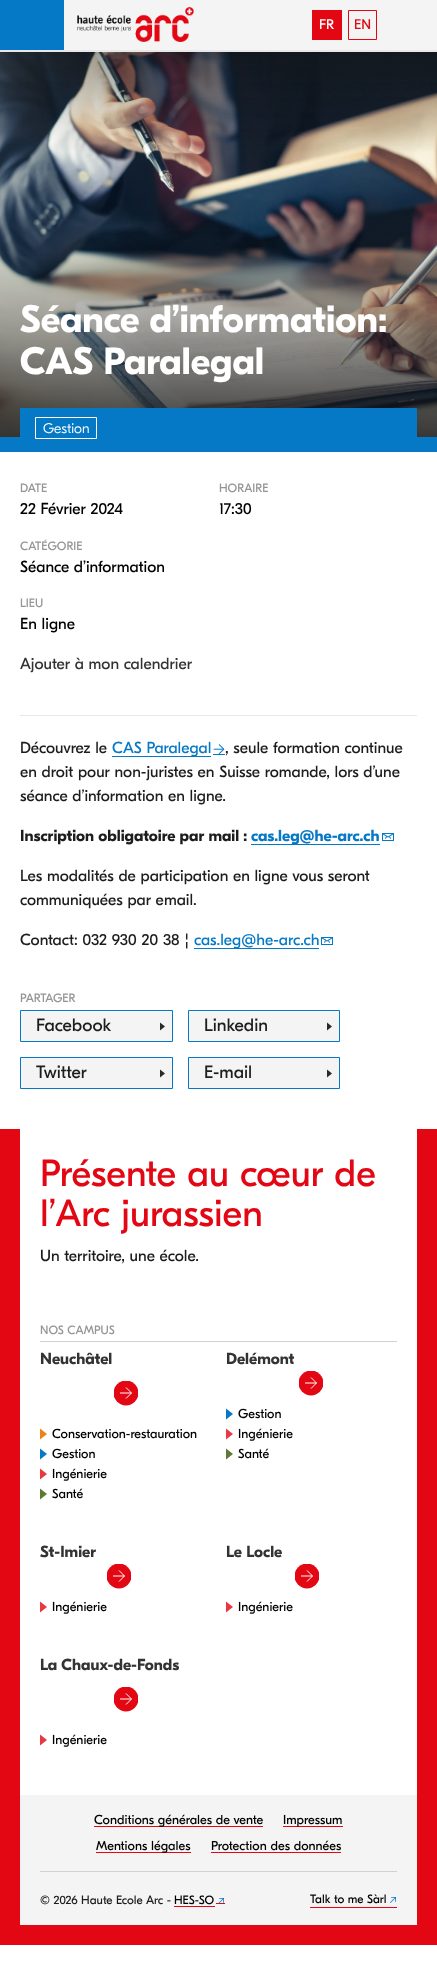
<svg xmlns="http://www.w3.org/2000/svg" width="437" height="1962">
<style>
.a{font:14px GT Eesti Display;fill:#fff}
.b{font:14px GT Eesti Display;fill:#e30613}
.c{font:bold 38px GT Eesti Display;fill:#fff}
.d{font:300 14px GT Eesti Display;fill:#fff}
.e{font:12px GT Eesti Display;fill:#959595}
.f{font:16px GT Eesti Display;fill:#000}
.g{font:16px GT Eesti Display;fill:#333}
.h{font:16px GT Eesti Display;fill:#1d1d1d}
.i{font:16px GT Eesti Display;fill:#0679c6}
.j{font:bold 16px GT Eesti Display;fill:#1d1d1d}
.k{font:bold 16px GT Eesti Display;fill:#0679c6}
.l{font:18px GT Eesti Display;fill:#1d1d1d}
.m{font:38px GT Eesti Display;fill:#e30613}
.n{font:bold 16px GT Eesti Display;fill:#333}
.o{font:13px GT Eesti Display;fill:#000}
.p{font:12px GT Eesti Display;fill:#1d1d1d}
.q{font:12px GT Eesti Display;fill:#000}
</style>
<defs>
<clipPath id="clip1"><path d="M114 1381h24v25H114z"/></clipPath>
<clipPath id="clip2"><path d="M299 1371h24v25H299z"/></clipPath>
<clipPath id="clip3"><path d="M107 1564h24v25H107z"/></clipPath>
<clipPath id="clip4"><path d="M295 1564h24v25H295z"/></clipPath>
<clipPath id="clip5"><path d="M114 1687h24v25H114z"/></clipPath>
</defs>
<rect width="100%" height="100%" fill="#fff"/>
<path fill="#f4f4f4" d="M64 0h373v50H64z"/>
<path fill="#e8e8e8" d="M0 50h437v2H0z"/>
<path fill="#0679c6" d="M0 0h64v50H0z"/>
<image href="1.png" x="77" y="7" width="117" height="35"/>
<path fill="#e30613" d="M312 10h30v30H312z"/>
<path fill="none" stroke="#e30613" d="M348.5 10.5h28v29H348.5z"/>
<image href="2.png" x="0" y="52" width="437" height="385"/>
<path fill="#0679c6" d="M0 437h437v15H0z"/>
<path fill="#0679c6" d="M20 408h397v29H20z"/>
<path fill="none" stroke="#fff" d="M35.5 417.5h61v21H35.5z"/>
<path fill="#e8e8e8" d="M20 715h397v1H20z"/>
<path fill="#0679c6" d="M112 756h99v1H112z"/>
<path fill="#0679c6" d="M213 754h12v1H213z"/>
<image href="3.png" x="213" y="744" width="12" height="10"/>
<path fill="#0679c6" d="M251 844h129v1H251z"/>
<path fill="#0679c6" d="M382 840h12v1H382z"/>
<image href="4.png" x="382" y="833" width="12" height="7"/>
<path fill="#0679c6" d="M194 948h125v1H194z"/>
<path fill="#0679c6" d="M321 944h12v1H321z"/>
<image href="4.png" x="321" y="937" width="12" height="7"/>
<path fill="#f4f4f4" d="M21 1011h151v30H21z"/>
<path fill="#292927" fill-rule="evenodd" d="M165 1026.5l-5-4v8z"/>
<path fill="none" stroke="#0679c6" d="M20.5 1010.5h152v31H20.5z"/>
<path fill="#f4f4f4" d="M189 1011h150v30H189z"/>
<path fill="#292927" fill-rule="evenodd" d="M332 1026.5l-5-4v8z"/>
<path fill="none" stroke="#0679c6" d="M188.5 1010.5h151v31H188.5z"/>
<path fill="#f4f4f4" d="M21 1058h151v30H21z"/>
<path fill="#292927" fill-rule="evenodd" d="M165 1073.5l-5-4v8z"/>
<path fill="none" stroke="#0679c6" d="M20.5 1057.5h152v31H20.5z"/>
<path fill="#f4f4f4" d="M189 1058h150v30H189z"/>
<path fill="#292927" fill-rule="evenodd" d="M332 1073.5l-5-4v8z"/>
<path fill="none" stroke="#0679c6" d="M188.5 1057.5h151v31H188.5z"/>
<path fill="#e30613" d="M417 1129h20v796H417z"/>
<path fill="#e30613" d="M20 1925h417v20H20z"/>
<path fill="#e30613" d="M0 1129h20v816H0z"/>
<path fill="#d0d0d0" d="M40 1341h357v1H40z"/>
<g clip-path="url(#clip1)">
<circle fill="#e30613" cx="126" cy="1393" r="12.5"/>
</g>
<path fill="none" stroke="#fff" stroke-linecap="square" d="M131 1393h-10.5"/>
<path fill="none" stroke="#fff" d="M126 1387.5l5.5 5.5l-5.5 5.5"/>
<path fill="#ef8214" fill-rule="evenodd" d="M47 1434l-7-5.5v11z"/>
<path fill="#0679c6" fill-rule="evenodd" d="M47 1454l-7-5.5v11z"/>
<path fill="#e93842" fill-rule="evenodd" d="M47 1474l-7-5.5v11z"/>
<path fill="#5c7a33" fill-rule="evenodd" d="M47 1494l-7-5.5v11z"/>
<g clip-path="url(#clip2)">
<circle fill="#e30613" cx="311" cy="1383" r="12.5"/>
</g>
<path fill="none" stroke="#fff" stroke-linecap="square" d="M316 1383h-10.5"/>
<path fill="none" stroke="#fff" d="M311 1377.5l5.5 5.5l-5.5 5.5"/>
<path fill="#0679c6" fill-rule="evenodd" d="M233 1414l-7-5.5v11z"/>
<path fill="#e93842" fill-rule="evenodd" d="M233 1434l-7-5.5v11z"/>
<path fill="#5c7a33" fill-rule="evenodd" d="M233 1454l-7-5.5v11z"/>
<g clip-path="url(#clip3)">
<circle fill="#e30613" cx="119" cy="1576" r="12.5"/>
</g>
<path fill="none" stroke="#fff" stroke-linecap="square" d="M124 1576h-10.5"/>
<path fill="none" stroke="#fff" d="M119 1570.5l5.5 5.5l-5.5 5.5"/>
<path fill="#e93842" fill-rule="evenodd" d="M47 1607l-7-5.5v11z"/>
<g clip-path="url(#clip4)">
<circle fill="#e30613" cx="307" cy="1576" r="12.5"/>
</g>
<path fill="none" stroke="#fff" stroke-linecap="square" d="M312 1576h-10.5"/>
<path fill="none" stroke="#fff" d="M307 1570.5l5.5 5.5l-5.5 5.5"/>
<path fill="#e93842" fill-rule="evenodd" d="M233 1607l-7-5.5v11z"/>
<g clip-path="url(#clip5)">
<circle fill="#e30613" cx="126" cy="1699" r="12.5"/>
</g>
<path fill="none" stroke="#fff" stroke-linecap="square" d="M131 1699h-10.5"/>
<path fill="none" stroke="#fff" d="M126 1693.5l5.5 5.5l-5.5 5.5"/>
<path fill="#e93842" fill-rule="evenodd" d="M47 1740l-7-5.5v11z"/>
<path fill="#f4f4f4" d="M20 1795h397v130H20z"/>
<path fill="#d0d0d0" d="M40 1871h357v1H40z"/>
<path fill="#e30613" d="M94 1826h169v1H94z"/>
<path fill="#e30613" d="M283 1826h60v1H283z"/>
<path fill="#e30613" d="M96 1852h95v1H96z"/>
<path fill="#e30613" d="M211 1852h130v1H211z"/>
<path fill="#e30613" d="M174 1906h41v1H174z"/>
<path fill="#e30613" d="M216 1903h9v1H216z"/>
<image href="5.png" x="218" y="1898" width="6" height="6"/>
<path fill="#e30613" d="M310 1907h87v1H310z"/>
<image href="6.png" x="390" y="1897" width="6" height="6"/>
<text class="a" x="319" y="29">FR</text>
<text class="b" x="354" y="29">EN</text>
<text class="c" x="20" y="332">Séance d’information:</text>
<text class="c" x="20" y="374">CAS Paralegal</text>
<text class="d" x="43" y="433">Gestion</text>
<text class="e" x="20" y="492">DATE</text>
<text class="f" x="20" y="514">22 Février 2024</text>
<text class="e" x="219" y="492">HORAIRE</text>
<text class="f" x="219" y="514">17:30</text>
<text class="e" x="20" y="550">CATÉGORIE</text>
<text class="f" x="20" y="572">Séance d’information</text>
<text class="e" x="20" y="607">LIEU</text>
<text class="f" x="20" y="629">En ligne</text>
<text class="g" x="20" y="669">Ajouter à mon calendrier</text>
<text class="h" x="20" y="753">Découvrez le</text>
<text class="i" x="112" y="753">CAS Paralegal</text>
<text class="h" x="225" y="753">, seule formation continue</text>
<text class="h" x="20" y="777">en droit pour non-juristes en Suisse romande, lors d’une</text>
<text class="h" x="20" y="801">séance d’information en ligne.</text>
<text class="j" x="20" y="841">Inscription obligatoire par mail :</text>
<text class="k" x="251" y="841">cas.leg@he-arc.ch</text>
<text class="h" x="20" y="881">Les modalités de participation en ligne vous seront</text>
<text class="h" x="20" y="905">communiquées par email.</text>
<text class="h" x="20" y="945">Contact: 032 930 20 38 ¦</text>
<text class="i" x="194" y="945">cas.leg@he-arc.ch</text>
<text class="e" x="20" y="1002">PARTAGER</text>
<text class="l" x="36" y="1031">Facebook</text>
<text class="l" x="204" y="1031">Linkedin</text>
<text class="l" x="36" y="1078">Twitter</text>
<text class="l" x="204" y="1078">E-mail</text>
<text class="m" x="40" y="1186">Présente au cœur de</text>
<text class="m" x="40" y="1226">l’Arc jurassien</text>
<text class="h" x="40" y="1261">Un territoire, une école.</text>
<text class="e" x="40" y="1334">NOS CAMPUS</text>
<text class="n" x="40" y="1364">Neuchâtel</text>
<text class="o" x="52" y="1438">Conservation-restauration</text>
<text class="o" x="52" y="1458">Gestion</text>
<text class="o" x="52" y="1478">Ingénierie</text>
<text class="o" x="52" y="1498">Santé</text>
<text class="n" x="226" y="1364">Delémont</text>
<text class="o" x="238" y="1418">Gestion</text>
<text class="o" x="238" y="1438">Ingénierie</text>
<text class="o" x="238" y="1458">Santé</text>
<text class="n" x="40" y="1557">St-Imier</text>
<text class="o" x="52" y="1611">Ingénierie</text>
<text class="n" x="226" y="1557">Le Locle</text>
<text class="o" x="238" y="1611">Ingénierie</text>
<text class="n" x="40" y="1670">La Chaux-de-Fonds</text>
<text class="o" x="52" y="1744">Ingénierie</text>
<text class="o" x="94" y="1824">Conditions générales de vente</text>
<text class="o" x="283" y="1824">Impressum</text>
<text class="o" x="96" y="1850">Mentions légales</text>
<text class="o" x="211" y="1850">Protection des données</text>
<text class="p" x="40" y="1904">© 2026 Haute Ecole Arc -</text>
<text class="q" x="174" y="1904">HES-SO</text>
<text class="q" x="310" y="1903">Talk to me Sàrl</text>
</svg>
